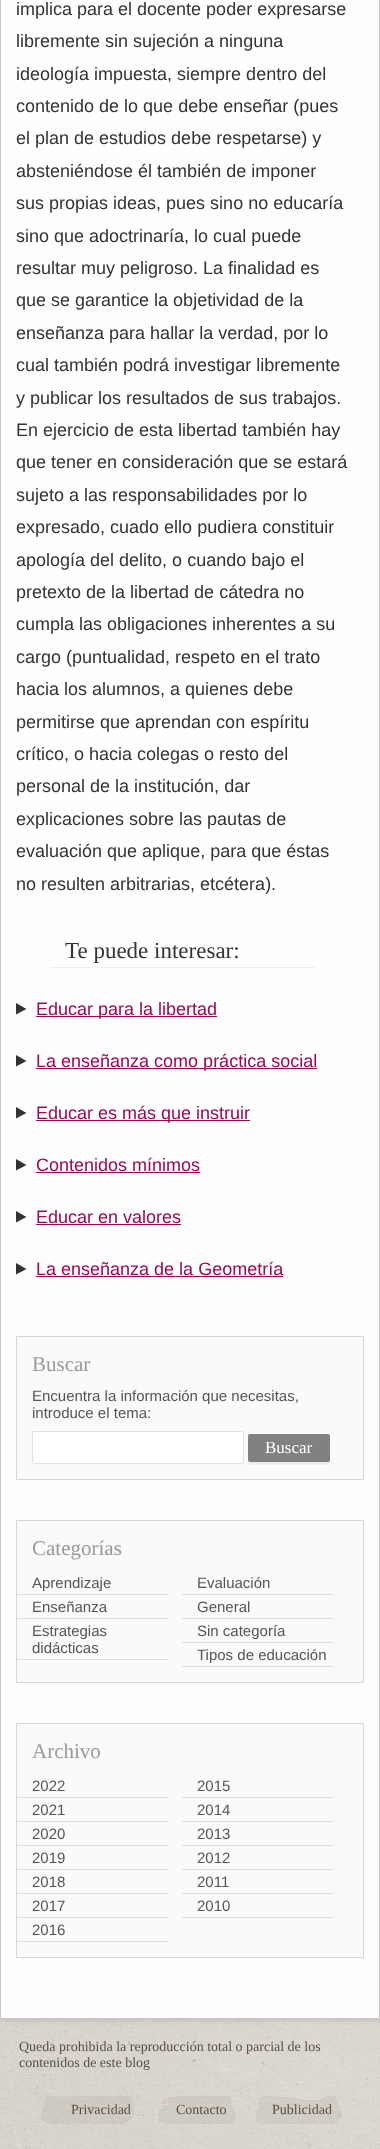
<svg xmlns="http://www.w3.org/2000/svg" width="380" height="2149">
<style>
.a{font:18px Liberation Sans;fill:#333}
.b{font:23px Liberation Serif;fill:#333}
.c{font:18px Liberation Sans;fill:#9e0755}
.d{font:21px Liberation Serif;fill:#999}
.e{font:15px Liberation Sans;fill:#555}
.f{font:17px Liberation Serif;fill:#fffefe}
.g{font:14px Liberation Serif;fill:#595142}
</style>
<rect width="100%" height="100%" fill="#fff"/>
<image href="1.png" x="0" y="2019" width="380" height="130"/>
<path fill="#0000001a" filter="blur(2.5px)" d="M0 -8h380v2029H0z"/>
<path fill="#fefefe" stroke="#c9c5bf" d="M0.5 -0.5h379v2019H0.5z"/>
<path fill="#eee" d="M50 967h265v1H50z"/>
<path fill="#333" d="M16 1003l10.5 6l-10.5 5.5z"/>
<path fill="#9e0755" d="M36 1016h181v1H36z"/>
<path fill="#333" d="M16 1055l10.5 6l-10.5 5.5z"/>
<path fill="#9e0755" d="M36 1068h281v1H36z"/>
<path fill="#333" d="M16 1107l10.5 6l-10.5 5.5z"/>
<path fill="#9e0755" d="M36 1120h214v1H36z"/>
<path fill="#333" d="M16 1159l10.5 6l-10.5 5.5z"/>
<path fill="#9e0755" d="M36 1172h164v1H36z"/>
<path fill="#333" d="M16 1211l10.5 6l-10.5 5.5z"/>
<path fill="#9e0755" d="M36 1224h145v1H36z"/>
<path fill="#333" d="M16 1263l10.5 6l-10.5 5.5z"/>
<path fill="#9e0755" d="M36 1276h247v1H36z"/>
<path fill="#fafafa" stroke="#d6d6d6" d="M16.5 1336.5h347v143H16.5z"/>
<rect fill="#fff" stroke="#e2e2e2" x="32.5" y="1431.5" width="211" height="32" rx="1.5"/>
<path fill="#eee" d="M248 1460v3c0 1 1 2 2 2h78c1 0 2-1 2-2v-3c0 1-1 2-2 2h-79z"/>
<rect fill="#818181" x="248" y="1434" width="82" height="28" rx="2"/>
<path fill="#fafafa" stroke="#d6d6d6" d="M16.5 1520.5h347v162H16.5z"/>
<path fill="#ddd" d="M17 1594h151v1H17z"/>
<path fill="#ddd" d="M182 1594h151v1H182z"/>
<path fill="#ddd" d="M17 1618h151v1H17z"/>
<path fill="#ddd" d="M182 1618h151v1H182z"/>
<path fill="#ddd" d="M17 1659h151v1H17z"/>
<path fill="#ddd" d="M182 1642h151v1H182z"/>
<path fill="#ddd" d="M182 1666h151v1H182z"/>
<path fill="#fafafa" stroke="#d6d6d6" d="M16.5 1723.5h347v234H16.5z"/>
<path fill="#ddd" d="M17 1797h151v1H17z"/>
<path fill="#ddd" d="M182 1797h151v1H182z"/>
<path fill="#ddd" d="M17 1821h151v1H17z"/>
<path fill="#ddd" d="M182 1821h151v1H182z"/>
<path fill="#ddd" d="M17 1845h151v1H17z"/>
<path fill="#ddd" d="M182 1845h151v1H182z"/>
<path fill="#ddd" d="M17 1869h151v1H17z"/>
<path fill="#ddd" d="M182 1869h151v1H182z"/>
<path fill="#ddd" d="M17 1893h151v1H17z"/>
<path fill="#ddd" d="M182 1893h151v1H182z"/>
<path fill="#ddd" d="M17 1917h151v1H17z"/>
<path fill="#ddd" d="M182 1917h151v1H182z"/>
<path fill="#ddd" d="M17 1941h151v1H17z"/>
<image href="2.png" x="41" y="2096" width="301" height="28"/>
<text class="a" x="16" y="15">implica para el docente poder expresarse</text>
<text class="a" x="16" y="47">libremente sin sujeción a ninguna</text>
<text class="a" x="16" y="80">ideología impuesta, siempre dentro del</text>
<text class="a" x="16" y="112">contenido de lo que debe enseñar (pues</text>
<text class="a" x="16" y="144">el plan de estudios debe respetarse) y</text>
<text class="a" x="16" y="177">absteniéndose él también de imponer</text>
<text class="a" x="16" y="209">sus propias ideas, pues sino no educaría</text>
<text class="a" x="16" y="242">sino que adoctrinaría, lo cual puede</text>
<text class="a" x="16" y="274">resultar muy peligroso. La finalidad es</text>
<text class="a" x="16" y="306">que se garantice la objetividad de la</text>
<text class="a" x="16" y="339">enseñanza para hallar la verdad, por lo</text>
<text class="a" x="16" y="371">cual también podrá investigar libremente</text>
<text class="a" x="16" y="404">y publicar los resultados de sus trabajos.</text>
<text class="a" x="16" y="436">En ejercicio de esta libertad también hay</text>
<text class="a" x="16" y="468">que tener en consideración que se estará</text>
<text class="a" x="16" y="501">sujeto a las responsabilidades por lo</text>
<text class="a" x="16" y="533">expresado, cuado ello pudiera constituir</text>
<text class="a" x="16" y="566">apología del delito, o cuando bajo el</text>
<text class="a" x="16" y="598">pretexto de la libertad de cátedra no</text>
<text class="a" x="16" y="630">cumpla las obligaciones inherentes a su</text>
<text class="a" x="16" y="663">cargo (puntualidad, respeto en el trato</text>
<text class="a" x="16" y="695">hacia los alumnos, a quienes debe</text>
<text class="a" x="16" y="728">permitirse que aprendan con espíritu</text>
<text class="a" x="16" y="760">crítico, o hacia colegas o resto del</text>
<text class="a" x="16" y="792">personal de la institución, dar</text>
<text class="a" x="16" y="825">explicaciones sobre las pautas de</text>
<text class="a" x="16" y="857">evaluación que aplique, para que éstas</text>
<text class="a" x="16" y="890">no resulten arbitrarias, etcétera).</text>
<text class="b" x="65" y="958">Te puede interesar:</text>
<text class="c" x="36" y="1015">Educar para la libertad</text>
<text class="c" x="36" y="1067">La enseñanza como práctica social</text>
<text class="c" x="36" y="1119">Educar es más que instruir</text>
<text class="c" x="36" y="1171">Contenidos mínimos</text>
<text class="c" x="36" y="1223">Educar en valores</text>
<text class="c" x="36" y="1275">La enseñanza de la Geometría</text>
<text class="d" x="32" y="1371">Buscar</text>
<text class="e" x="32" y="1401">Encuentra la información que necesitas,</text>
<text class="e" x="32" y="1418">introduce el tema:</text>
<text class="f" x="265" y="1453">Buscar</text>
<text class="d" x="32" y="1555">Categorías</text>
<text class="e" x="32" y="1588">Aprendizaje</text>
<text class="e" x="197" y="1588">Evaluación</text>
<text class="e" x="32" y="1612">Enseñanza</text>
<text class="e" x="197" y="1612">General</text>
<text class="e" x="32" y="1636">Estrategias</text>
<text class="e" x="32" y="1653">didácticas</text>
<text class="e" x="197" y="1636">Sin categoría</text>
<text class="e" x="197" y="1660">Tipos de educación</text>
<text class="d" x="32" y="1758">Archivo</text>
<text class="e" x="32" y="1791">2022</text>
<text class="e" x="197" y="1791">2015</text>
<text class="e" x="32" y="1815">2021</text>
<text class="e" x="197" y="1815">2014</text>
<text class="e" x="32" y="1839">2020</text>
<text class="e" x="197" y="1839">2013</text>
<text class="e" x="32" y="1863">2019</text>
<text class="e" x="197" y="1863">2012</text>
<text class="e" x="32" y="1887">2018</text>
<text class="e" x="197" y="1887">2011</text>
<text class="e" x="32" y="1911">2017</text>
<text class="e" x="197" y="1911">2010</text>
<text class="e" x="32" y="1935">2016</text>
<text class="g" x="19" y="2051">Queda prohibida la reproducción total o parcial de los</text>
<text class="g" x="19" y="2067">contenidos de este blog</text>
<text class="g" x="71" y="2114">Privacidad</text>
<text class="g" x="176" y="2114">Contacto</text>
<text class="g" x="272" y="2114">Publicidad</text>
</svg>
